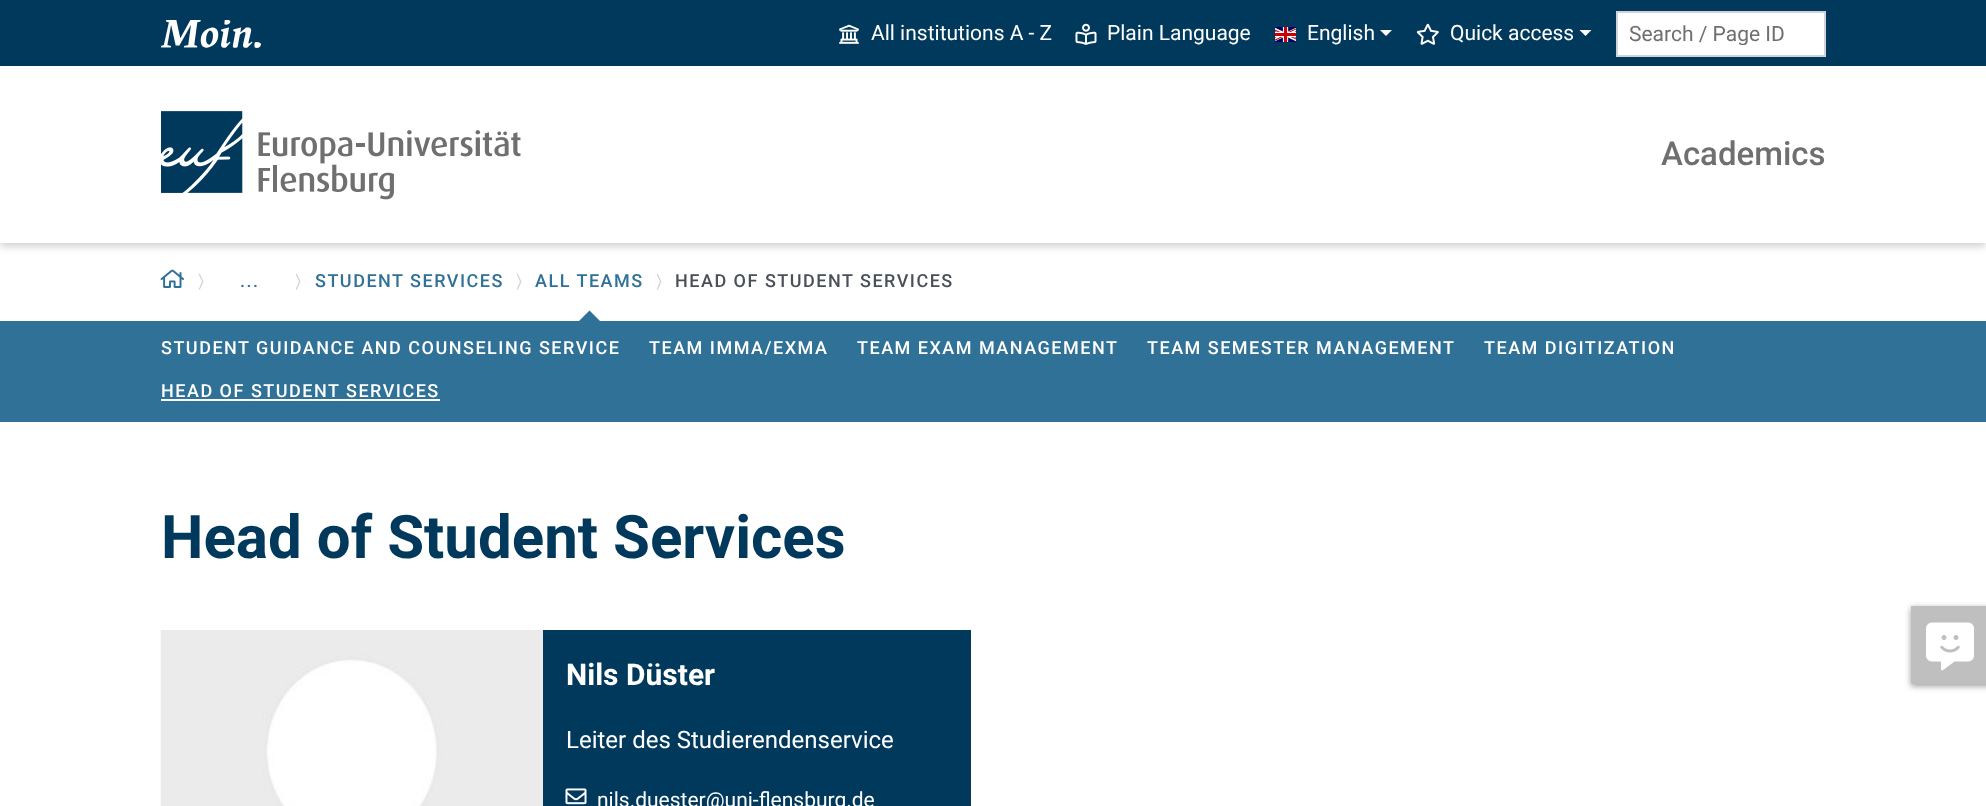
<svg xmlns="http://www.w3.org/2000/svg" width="1986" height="806">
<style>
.a{font:21px Roboto;fill:#fff}
.b{font:21px Roboto;fill:#6f6f6f}
.c{font:500 33px Roboto;fill:#6f6f6f}
.d{font:18px FreeSans;letter-spacing:1.5px;fill:#ced4da}
.e{font:500 18px Roboto;letter-spacing:1.5px;fill:#307197}
.f{font:500 18px Roboto;letter-spacing:1.5px;fill:#495057}
.g{font:500 18px Roboto;letter-spacing:1.5px;fill:#fff}
.h{font:bold 60px Roboto;fill:#00395b}
.i{font:bold 30px Roboto;fill:#fff}
.j{font:24px Roboto;fill:#fff}
</style>
<defs>
<clipPath id="clip1"><path d="M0 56h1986v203h-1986zm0 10h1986v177h-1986z" clip-rule="evenodd"/></clipPath>
<clipPath id="clip2"><path d="M1629 21h183v24H1629z"/></clipPath>
</defs>
<rect width="100%" height="100%" fill="#fff"/>
<path fill="#00395b" d="M0 0h1986v66H0z"/>
<image href="1.png" x="161" y="20" width="100" height="28"/>
<image href="2.png" x="839" y="24" width="20" height="20"/>
<image href="3.png" x="1075" y="23" width="22" height="22"/>
<image href="4.png" x="1275" y="27" width="21" height="15"/>
<path fill="#fff" d="M1380 30h12l-6 6z"/>
<image href="5.png" x="1416" y="23" width="23" height="22"/>
<path fill="#fff" d="M1579.5 30h12l-6 6z"/>
<path fill="#fff" stroke="#ced4da" stroke-width="2" d="M1617 12h208v44H1617z"/>
<g clip-path="url(#clip1)">
<path fill="#00000033" filter="blur(4px)" d="M0 69h1986v177H0z"/>
</g>
<image href="6.png" x="161" y="111" width="360" height="89"/>
<image href="7.png" x="160" y="269" width="25" height="19"/>
<path fill="#307197" d="M600 321h-21l10.5-10.5z"/>
<path fill="#307197" d="M0 321h1986v101H0z"/>
<path fill="#fff" d="M161 399h279v2H161z"/>
<path fill="#00395b" d="M543 630h428v176H543z"/>
<image href="8.png" x="160" y="630" width="383" height="176"/>
<image href="9.png" x="565" y="788" width="22" height="17"/>
<path fill="#00000066" filter="blur(3px)" d="M1911 608h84v78H1911z"/>
<path fill="#bfbfbf" d="M1911 606h75v78H1911z"/>
<image href="10.png" x="1926" y="622" width="48" height="49"/>
<text class="a" x="871" y="40">All institutions A - Z</text>
<text class="a" x="1107" y="40">Plain Language</text>
<text class="a" x="1307" y="40">English</text>
<text class="a" x="1450" y="40">Quick access</text>
<g clip-path="url(#clip2)">
<text class="b" x="1629" y="41">Search / Page ID</text>
</g>
<text class="c" x="1661" y="165">Academics</text>
<text class="d" x="198" y="287">〉</text>
<text class="e" x="240" y="287">...</text>
<text class="d" x="295" y="287">〉</text>
<text class="e" x="315" y="287">STUDENT SERVICES</text>
<text class="d" x="516" y="287">〉</text>
<text class="e" x="535" y="287">ALL TEAMS</text>
<text class="d" x="656" y="287">〉</text>
<text class="f" x="675" y="287">HEAD OF STUDENT SERVICES</text>
<text class="g" x="161" y="354">STUDENT GUIDANCE AND COUNSELING SERVICE</text>
<text class="g" x="649" y="354">TEAM IMMA/EXMA</text>
<text class="g" x="857" y="354">TEAM EXAM MANAGEMENT</text>
<text class="g" x="1147" y="354">TEAM SEMESTER MANAGEMENT</text>
<text class="g" x="1484" y="354">TEAM DIGITIZATION</text>
<text class="g" x="161" y="397">HEAD OF STUDENT SERVICES</text>
<text class="h" x="161" y="558">Head of Student Services</text>
<text class="i" x="566" y="685">Nils Düster</text>
<text class="j" x="566" y="748">Leiter des Studierendenservice</text>
<text class="a" x="597" y="807">nils.duester@uni-flensburg.de</text>
</svg>
